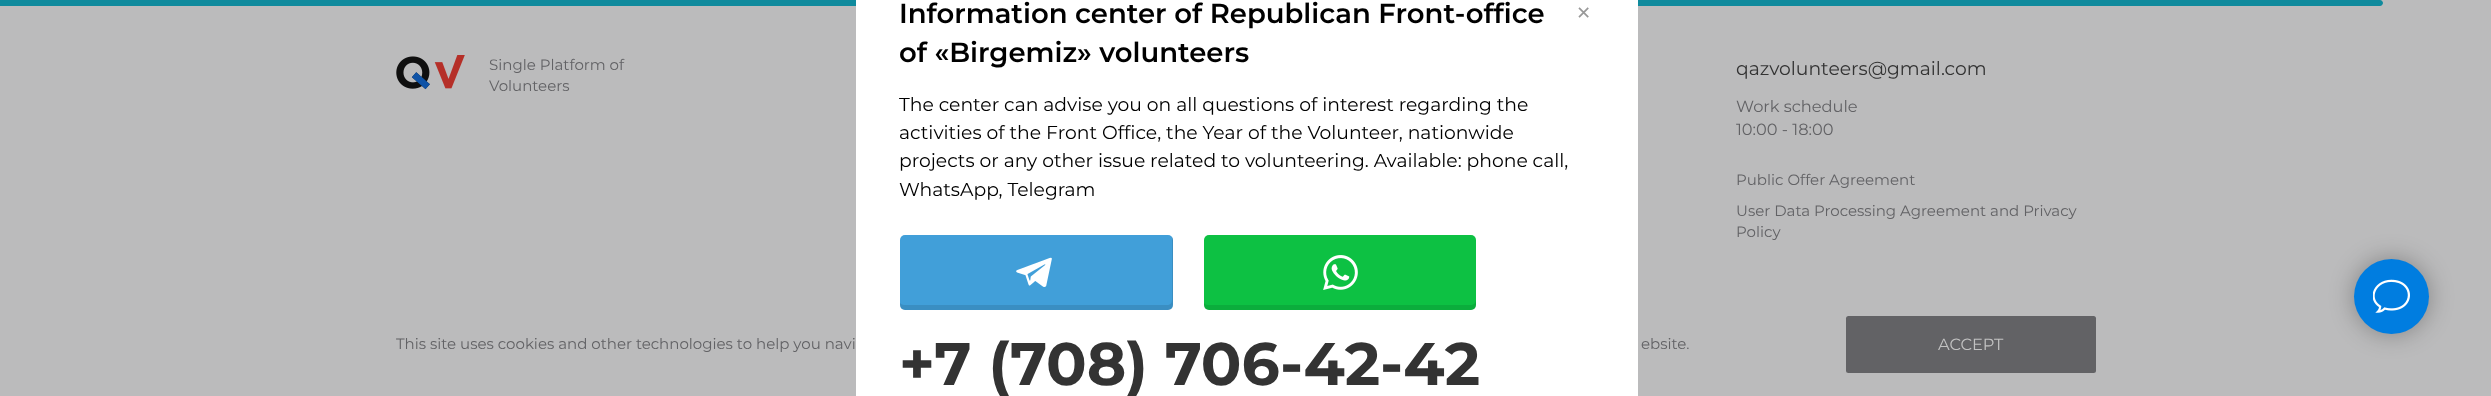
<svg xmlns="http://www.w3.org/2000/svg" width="2491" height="396">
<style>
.a{font:600 27.5px Montserrat;fill:#000}
.b{font:30px Montserrat;fill:#999}
.c{font:18.75px Montserrat;fill:#000}
.d{font:bold 60px Montserrat;fill:#333}
.e{font:15px Montserrat;fill:#626265}
.f{font:18.75px Montserrat;fill:#333}
.g{font:16.25px Montserrat;fill:#626265}
.h{font:16.25px Montserrat;fill:#c2c2c2}
</style>
<rect width="100%" height="100%" fill="#bbbbbc"/>
<path fill="#0f8a9d" d="M0 0h2380c1.5 0 3 1.5 3 3c0 1.5-1.5 3-3 3h-2380z"/>
<path fill="#fff" d="M856 0h782v396H856z"/>
<rect fill="#419fd9" x="900" y="235" width="273" height="75" rx="5"/>
<path fill="#0000001a" d="M900 303v2c0 3 2 5 5 5h263c3 0 5-2 5-5v-65c0-1 0-2-1-3v63c0 3-2 5-5 5h-263c-1 0-3-1-4-2z"/>
<image href="1.png" x="1016" y="257" width="36" height="30"/>
<rect fill="#0dc143" x="1204" y="235" width="272" height="75" rx="5"/>
<path fill="#0000001a" d="M1204 303v2c0 3 2 5 5 5h262c3 0 5-2 5-5v-5c0 3-3 5-5 5h-263c-2 0-3-1-4-2z"/>
<image href="2.png" x="1323" y="255" width="35" height="35"/>
<image href="3.png" x="396" y="55" width="69" height="35"/>
<rect fill="#626265" x="1846" y="316" width="250" height="57" rx="2.5"/>
<rect fill="#0000004d" filter="blur(12.5px)" x="2354" y="259" width="75" height="75" rx="37.5"/>
<circle fill="#007de0" cx="2391.5" cy="296.5" r="37.5"/>
<image href="4.png" x="2373" y="279" width="37" height="34"/>
<text class="a" x="899" y="23">Information center of Republican Front-office</text>
<text class="a" x="899" y="62">of «Birgemiz» volunteers</text>
<text class="b" x="1575" y="23">×</text>
<text class="c" x="899" y="111">The center can advise you on all questions of interest regarding the</text>
<text class="c" x="899" y="139">activities of the Front Office, the Year of the Volunteer, nationwide</text>
<text class="c" x="899" y="167">projects or any other issue related to volunteering. Available: phone call,</text>
<text class="c" x="899" y="196">WhatsApp, Telegram</text>
<text class="d" x="899" y="385">+7 (708) 706-42-42</text>
<text class="e" x="489" y="70">Single Platform of</text>
<text class="e" x="489" y="91">Volunteers</text>
<text class="f" x="1736" y="75">qazvolunteers@gmail.com</text>
<text class="g" x="1736" y="112">Work schedule</text>
<text class="g" x="1736" y="135">10:00 - 18:00</text>
<text class="e" x="1736" y="185">Public Offer Agreement</text>
<text class="e" x="1736" y="216">User Data Processing Agreement and Privacy</text>
<text class="e" x="1736" y="237">Policy</text>
<text class="e" x="396" y="349">This site uses cookies and other technologies to help you navi</text>
<text class="e" x="1641" y="349">ebsite.</text>
<text class="h" x="1938" y="350">ACCEPT</text>
</svg>
